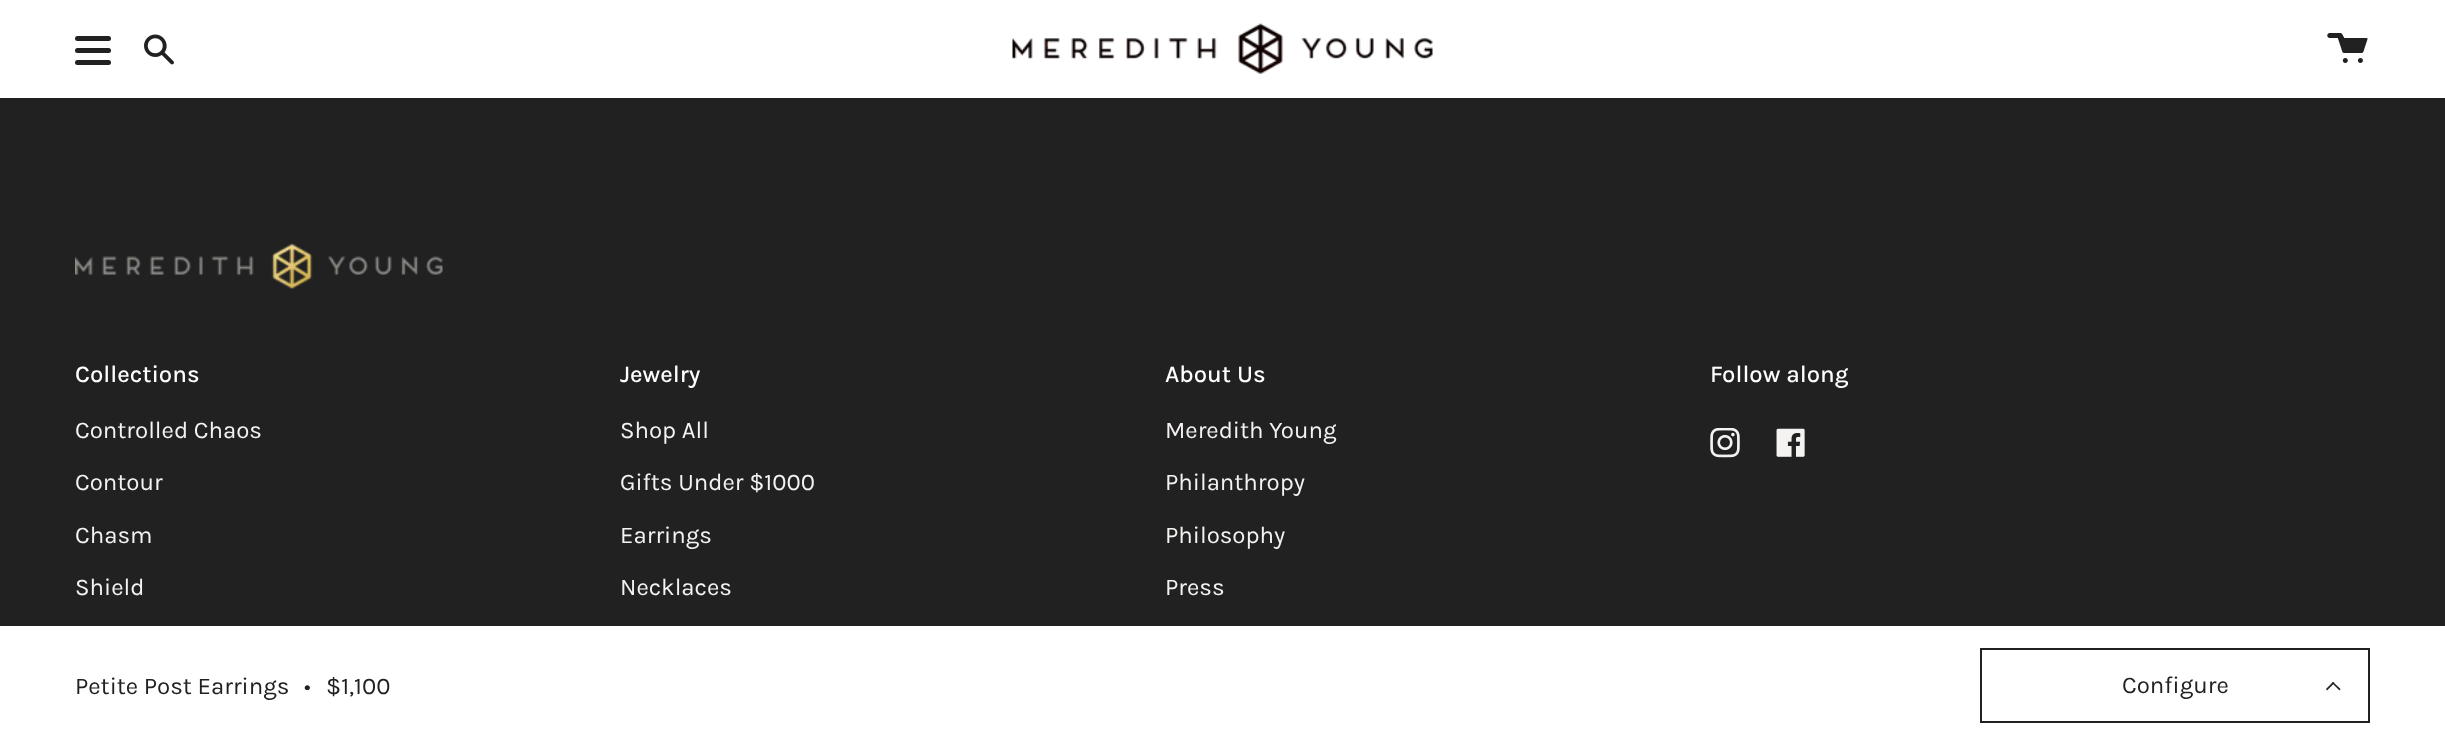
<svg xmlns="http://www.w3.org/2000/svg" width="2445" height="745">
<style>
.a{font:500 24px Karla;fill:#fff}
.b{font:24px Karla;fill:#f5f3f1}
.c{font:24px Karla;fill:#212121}
</style>
<rect width="100%" height="100%" fill="#212121"/>
<image href="1.png" x="75" y="243" width="368" height="47"/>
<image href="2.png" x="1710" y="428" width="30" height="30"/>
<image href="3.png" x="1776" y="428" width="29" height="29"/>
<path fill="#fff" d="M0 0h2445v98H0z"/>
<rect fill="#212121" x="75" y="36" width="36" height="5" rx="2.5"/>
<rect fill="#212121" x="75" y="48" width="36" height="5" rx="2.5"/>
<rect fill="#212121" x="75" y="60" width="36" height="5" rx="2.5"/>
<image href="4.png" x="144" y="34" width="30" height="31"/>
<image href="5.png" x="1012" y="23" width="421" height="51"/>
<image href="6.png" x="2327" y="33" width="41" height="30"/>
<path fill="#fff" d="M0 626h2445v119H0z"/>
<path fill="none" stroke="#212121" stroke-width="2" d="M1981 649h388v73H1981z"/>
<path fill="#212121" d="M2334.5 683l-7.5 7.5l-1-1.5l7-7z"/>
<path fill="#212121" d="M2340.5 689l-1 1.5l-7.5-7.5l1-1z"/>
<text class="a" x="75" y="382">Collections</text>
<text class="b" x="75" y="438">Controlled Chaos</text>
<text class="b" x="75" y="490">Contour</text>
<text class="b" x="75" y="543">Chasm</text>
<text class="b" x="75" y="595">Shield</text>
<text class="a" x="620" y="382">Jewelry</text>
<text class="b" x="620" y="438">Shop All</text>
<text class="b" x="620" y="490">Gifts Under $1000</text>
<text class="b" x="620" y="543">Earrings</text>
<text class="b" x="620" y="595">Necklaces</text>
<text class="a" x="1165" y="382">About Us</text>
<text class="b" x="1165" y="438">Meredith Young</text>
<text class="b" x="1165" y="490">Philanthropy</text>
<text class="b" x="1165" y="543">Philosophy</text>
<text class="b" x="1165" y="595">Press</text>
<text class="a" x="1710" y="382">Follow along</text>
<text class="c" x="75" y="694">Petite Post Earrings</text>
<text class="c" x="304" y="694">•</text>
<text class="c" x="326" y="694">$1,100</text>
<text class="c" x="2122" y="693">Configure</text>
</svg>
